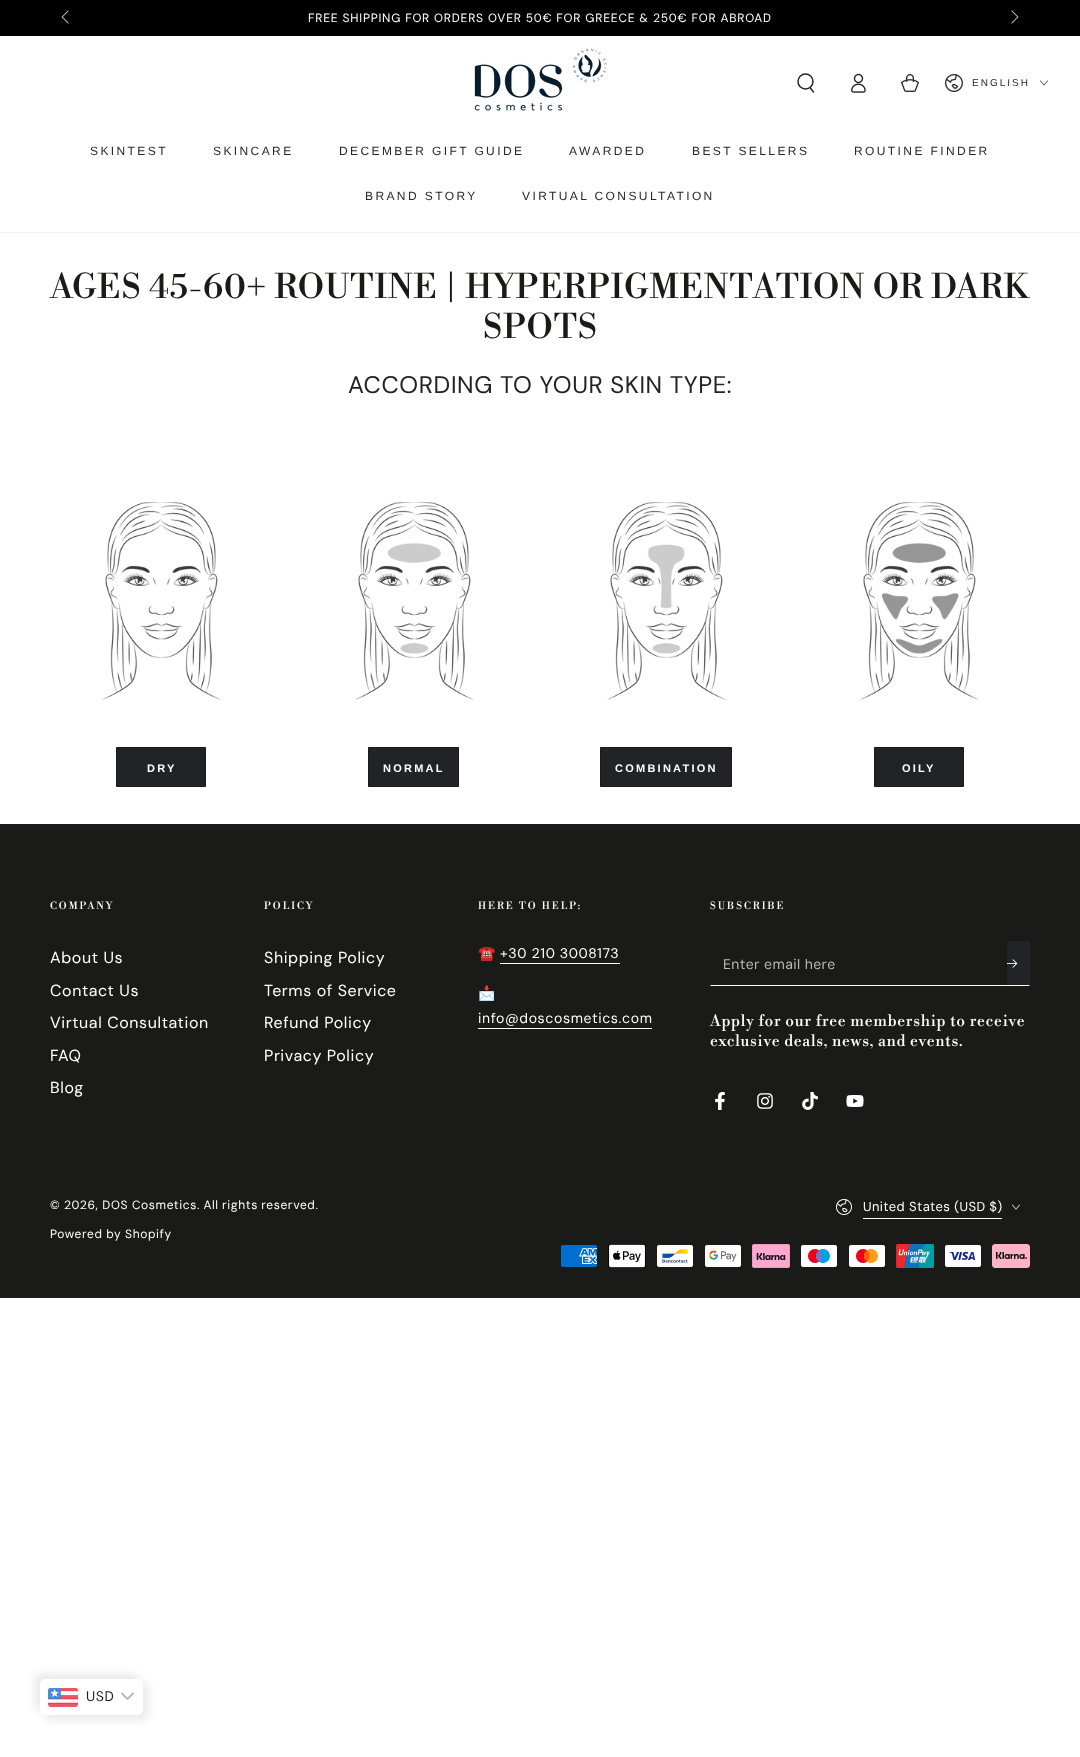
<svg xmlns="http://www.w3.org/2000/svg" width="1080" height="1757">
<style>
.a{font:12px 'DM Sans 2';letter-spacing:0.78px;fill:#fff}
.b{font:10px Liberation Sans;letter-spacing:2px;fill:#282828}
.c{font:12px Liberation Sans;letter-spacing:2.4px;fill:#282828}
.d{font:33.6px Libre Bodoni;letter-spacing:0.65px;fill:#1a1b18}
.e{font:24px DM Sans;letter-spacing:0.6px;fill:#212326}
.f{font:bold 11px Liberation Sans;letter-spacing:2.25px;fill:#fff}
.g{font:10px Libre Bodoni;letter-spacing:2px;fill:#fff}
.h{font:16px 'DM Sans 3';letter-spacing:0.6px;fill:#fff}
.i{font:14px Noto Color Emoji;letter-spacing:0.6px;fill:#fff}
.j{font:14px 'DM Sans 2';letter-spacing:0.6px;fill:#fff}
.k{font:14px 'DM Sans 2';letter-spacing:0.4px;fill:#babbba}
.l{font:15.6px Libre Bodoni;letter-spacing:0.7px;fill:#fff}
.m{font:12px 'DM Sans 2';letter-spacing:0.6px;fill:#fff}
.n{font:13px 'DM Sans 2';letter-spacing:0.4px;fill:#fff}
.o{font:14px 'DM Sans 2';letter-spacing:0.6px;fill:#1e1e1e}
</style>
<rect width="100%" height="100%" fill="#fff"/>
<path fill="#000" d="M0 0h1080v36H0z"/>
<image href="1.png" x="61" y="10" width="8" height="14"/>
<image href="2.png" x="1011" y="10" width="8" height="14"/>
<path fill="#f2f2f4" d="M0 232h1080v1H0z"/>
<image href="3.png" x="474" y="48" width="133" height="63"/>
<circle fill="none" stroke="#282828" stroke-width="1.5" cx="805.5" cy="81.5" r="7.5"/>
<path fill="none" stroke="#282828" stroke-width="1.5" stroke-linecap="round" d="M810 87.5l3.5 4.5"/>
<image href="4.png" x="851" y="73" width="15" height="20"/>
<image href="5.png" x="900" y="74" width="19" height="18"/>
<image href="6.png" x="945" y="74" width="18" height="18"/>
<image href="7.png" x="1040" y="80" width="8" height="6"/>
<image href="8.png" x="102" y="502" width="119" height="198"/>
<path fill="#212326" stroke="#1a1b18" d="M116.5 747.5h89v39H116.5z"/>
<image href="9.png" x="355" y="502" width="119" height="198"/>
<path fill="#212326" stroke="#1a1b18" d="M368.5 747.5h90v39H368.5z"/>
<image href="10.png" x="607" y="502" width="119" height="198"/>
<path fill="#212326" stroke="#1a1b18" d="M600.5 747.5h131v39H600.5z"/>
<image href="11.png" x="860" y="502" width="119" height="198"/>
<path fill="#212326" stroke="#1a1b18" d="M874.5 747.5h89v39H874.5z"/>
<path fill="#1a1b18" d="M0 824h1080v474H0z"/>
<path fill="#fff" d="M500 963h120v1H500z"/>
<path fill="#fff" d="M478 1028h174v1H478z"/>
<path fill="#fff" d="M1030 986h-320l1-1h318z"/>
<path fill="#212326" d="M1007 941h23v44H1007z"/>
<image href="12.png" x="1007" y="959" width="11" height="9"/>
<image href="13.png" x="715" y="1092" width="10" height="18"/>
<image href="14.png" x="757" y="1093" width="16" height="16"/>
<image href="15.png" x="802" y="1092" width="16" height="18"/>
<image href="16.png" x="846" y="1095" width="18" height="12"/>
<image href="17.png" x="836" y="1199" width="16" height="16"/>
<path fill="#fff" d="M863 1218h139v1H863z"/>
<image href="18.png" x="1012" y="1204" width="8" height="6"/>
<image href="19.png" x="561" y="1245" width="36" height="22"/>
<image href="20.png" x="608" y="1244" width="38" height="24"/>
<image href="21.png" x="657" y="1245" width="36" height="22"/>
<image href="22.png" x="705" y="1245" width="36" height="22"/>
<image href="23.png" x="752" y="1244" width="38" height="24"/>
<image href="24.png" x="801" y="1245" width="36" height="22"/>
<image href="25.png" x="849" y="1245" width="36" height="22"/>
<image href="26.png" x="896" y="1244" width="38" height="24"/>
<image href="27.png" x="945" y="1245" width="36" height="22"/>
<image href="28.png" x="992" y="1244" width="38" height="24"/>
<rect fill="#e8e8e8" filter="blur(5px)" x="35" y="1674" width="103" height="36" rx="5"/>
<rect fill="#e8e8e8" filter="blur(5px)" x="45" y="1684" width="103" height="36" rx="5"/>
<rect fill="#fff" x="40" y="1679" width="103" height="36" rx="5"/>
<image href="29.png" x="48" y="1688" width="30" height="19"/>
<path fill="none" stroke="#b7b7b7" stroke-width="1.8" stroke-linecap="round" stroke-linejoin="round" d="M122 1693.5l5.5 5.5l5.5-5.5"/>
<text class="a" x="308" y="22">FREE SHIPPING FOR ORDERS OVER 50€ FOR GREECE &amp; 250€ FOR ABROAD</text>
<text class="b" x="972" y="86">ENGLISH</text>
<text class="c" x="90" y="155">SKINTEST</text>
<text class="c" x="213" y="155">SKINCARE</text>
<text class="c" x="339" y="155">DECEMBER GIFT GUIDE</text>
<text class="c" x="569" y="155">AWARDED</text>
<text class="c" x="692" y="155">BEST SELLERS</text>
<text class="c" x="854" y="155">ROUTINE FINDER</text>
<text class="c" x="365" y="200">BRAND STORY</text>
<text class="c" x="522" y="200">VIRTUAL CONSULTATION</text>
<text class="d" x="50" y="298">AGES 45-60+ ROUTINE | HYPERPIGMENTATION OR DARK</text>
<text class="d" x="483" y="338">SPOTS</text>
<text class="e" x="348" y="393">ACCORDING TO YOUR SKIN TYPE:</text>
<text class="f" x="147" y="772">DRY</text>
<text class="f" x="383" y="772">NORMAL</text>
<text class="f" x="615" y="772">COMBINATION</text>
<text class="f" x="902" y="772">OILY</text>
<text class="g" x="50" y="909">COMPANY</text>
<text class="h" x="50" y="963">About Us</text>
<text class="h" x="50" y="996">Contact Us</text>
<text class="h" x="50" y="1028">Virtual Consultation</text>
<text class="h" x="50" y="1061">FAQ</text>
<text class="h" x="50" y="1093">Blog</text>
<text class="g" x="264" y="909">POLICY</text>
<text class="h" x="264" y="963">Shipping Policy</text>
<text class="h" x="264" y="996">Terms of Service</text>
<text class="h" x="264" y="1028">Refund Policy</text>
<text class="h" x="264" y="1061">Privacy Policy</text>
<text class="g" x="478" y="909">HERE TO HELP:</text>
<text class="i" x="478" y="958">☎️</text>
<text class="j" x="500" y="958">+30 210 3008173</text>
<text class="i" x="478" y="998">📩</text>
<text class="j" x="478" y="1023">info@doscosmetics.com</text>
<text class="g" x="710" y="909">SUBSCRIBE</text>
<text class="k" x="723" y="969">Enter email here</text>
<text class="l" x="710" y="1026">Apply for our free membership to receive</text>
<text class="l" x="710" y="1046">exclusive deals, news, and events.</text>
<text class="m" x="50" y="1209">© 2026, DOS Cosmetics</text>
<text class="m" x="197" y="1209" word-spacing="-0.5">. All rights reserved.</text>
<text class="m" x="50" y="1238">Powered by Shopify</text>
<text class="n" x="863" y="1211">United States (USD $)</text>
<text class="o" x="86" y="1701">USD</text>
</svg>
